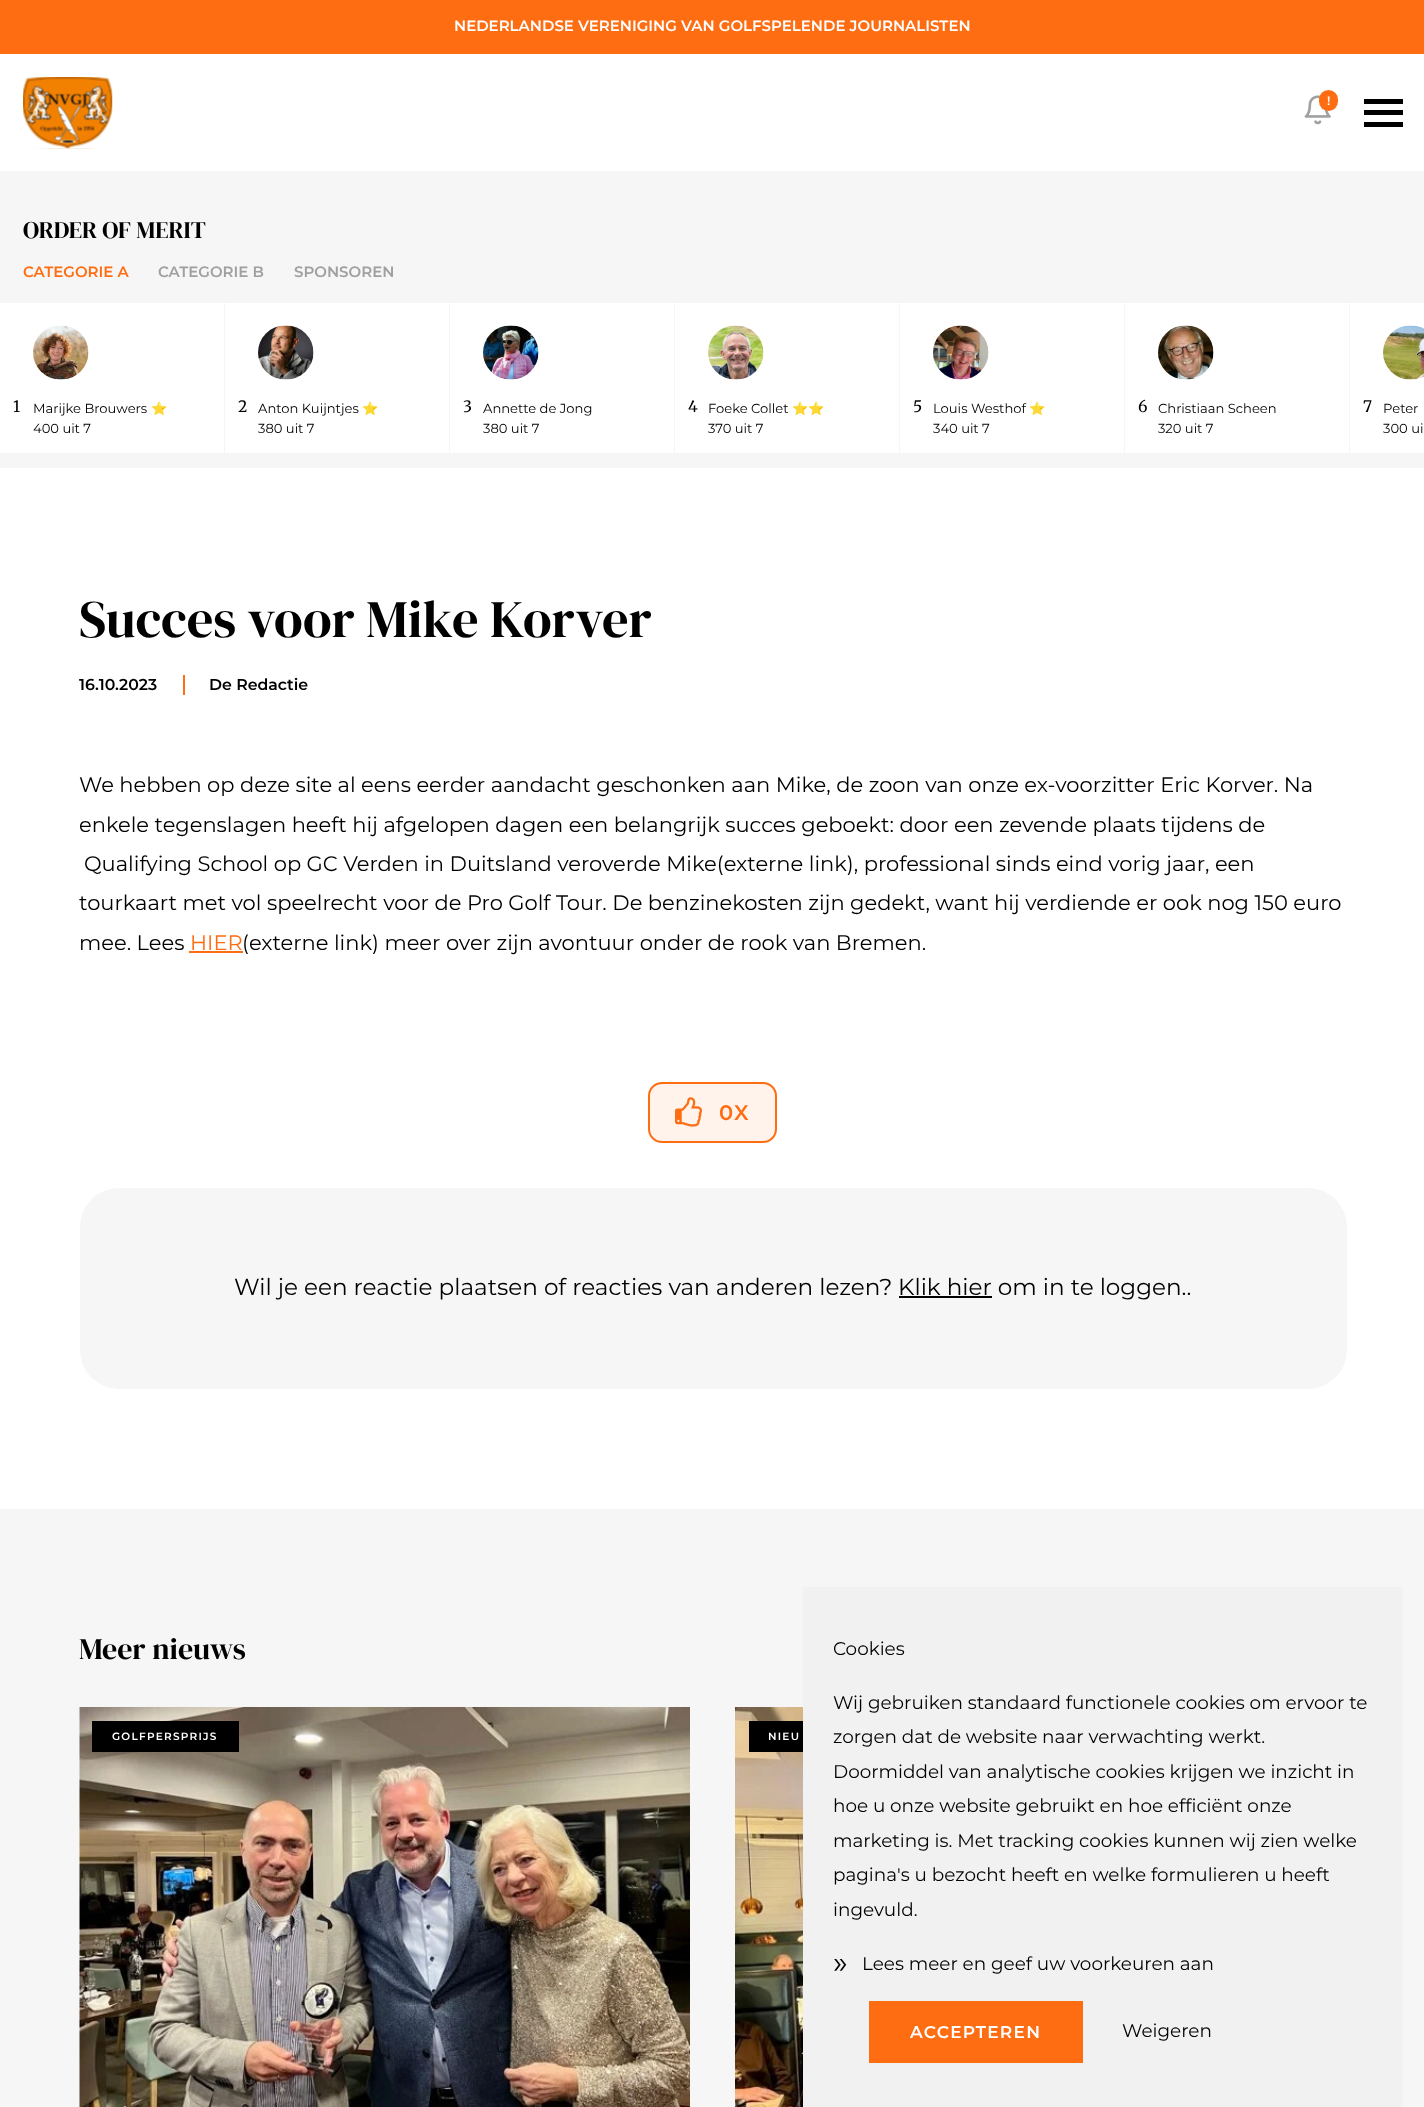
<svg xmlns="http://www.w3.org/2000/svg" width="1424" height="2107">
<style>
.a{font:600 15px Montserrat;fill:#fff}
.b{font:600 12px Montserrat;fill:#fff}
.c{font:24px DM Serif Display;fill:#000}
.d{font:600 15px Montserrat;fill:#ff6d12}
.e{font:600 15px Montserrat;fill:#a0a0a0}
.f{font:15.75px Merriweather;fill:#000}
.g{font:13.1px Montserrat;fill:#000}
.h{font:13.1px Noto Color Emoji;fill:#000}
.i{font:52.5px DM Serif Display;fill:#000}
.j{font:600 15.75px Montserrat;fill:#000}
.k{font:21px Montserrat;fill:#000}
.l{font:21px Montserrat;fill:#ff6d12}
.m{font:600 21px Montserrat;letter-spacing:1.25px;fill:#ff6d12}
.n{font:23.1px Montserrat;fill:#000}
.o{font:30px DM Serif Display;fill:#000}
.p{font:600 10.5px Montserrat;letter-spacing:1.25px;fill:#fff}
.q{font:18.4px Montserrat;fill:#000}
.r{font:31px Montserrat;fill:#000}
.s{font:600 17px Montserrat;letter-spacing:1.25px;fill:#fff}
</style>
<rect width="100%" height="100%" fill="#fff"/>
<path fill="#ff6d12" d="M0 0h1424v54H0z"/>
<image href="1.png" x="23" y="77" width="90" height="72"/>
<image href="2.png" x="1304" y="95" width="27" height="30"/>
<rect fill="#ff6d12" x="1319" y="90" width="19" height="21" rx="9.5"/>
<path fill="#000" d="M1364 99h39v5H1364z"/>
<path fill="#000" d="M1364 110h39v5H1364z"/>
<path fill="#000" d="M1364 122h39v5H1364z"/>
<path fill="#f6f6f6" d="M0 171h1424v297H0z"/>
<path fill="#fff" d="M0 303h224v150H0z"/>
<image href="3.png" x="33" y="325" width="56" height="55"/>
<path fill="#fff" d="M225 303h224v150H225z"/>
<image href="4.png" x="258" y="325" width="56" height="55"/>
<path fill="#fff" d="M450 303h224v150H450z"/>
<image href="5.png" x="483" y="325" width="56" height="55"/>
<path fill="#fff" d="M675 303h224v150H675z"/>
<image href="6.png" x="708" y="325" width="56" height="55"/>
<path fill="#fff" d="M900 303h224v150H900z"/>
<image href="7.png" x="933" y="325" width="56" height="55"/>
<path fill="#fff" d="M1125 303h224v150H1125z"/>
<image href="8.png" x="1158" y="325" width="56" height="55"/>
<path fill="#fff" d="M1350 303h74v150H1350z"/>
<image href="9.png" x="1383" y="325" width="41" height="55"/>
<path fill="#ff6d12" d="M183 675h2v20H183z"/>
<path fill="#ff6d12" d="M189 951h54v2H189z"/>
<rect fill="#fff3ec" stroke="#ff6d12" stroke-width="2" x="649" y="1083" width="127" height="59" rx="13"/>
<image href="10.png" x="675" y="1097" width="27" height="30"/>
<rect fill="#f6f6f6" x="80" y="1188" width="1267" height="201" rx="39"/>
<path fill="#000" d="M899 1296h93v2H899z"/>
<path fill="#f6f6f6" d="M0 1509h1424v598H0z"/>
<image href="11.png" x="79" y="1707" width="611" height="400"/>
<path fill="#000" d="M92 1721h147v31H92z"/>
<image href="12.png" x="735" y="1707" width="68" height="400"/>
<path fill="#000" d="M749 1721h54v31H749z"/>
<path fill="#f1f1f1" d="M803 1587h600v520H803z"/>
<path fill="#ff6d12" d="M869 2001h214v62H869z"/>
<text class="a" x="454" y="31">NEDERLANDSE VERENIGING VAN GOLFSPELENDE JOURNALISTEN</text>
<text class="b" x="1327" y="105">!</text>
<text class="c" x="23" y="238">ORDER OF MERIT</text>
<text class="d" x="23" y="277">CATEGORIE A</text>
<text class="e" x="158" y="277">CATEGORIE B</text>
<text class="e" x="294" y="277">SPONSOREN</text>
<text class="f" x="13" y="412">1</text>
<text class="g" x="33" y="413">Marijke Brouwers</text>
<text class="h" x="151" y="413">⭐</text>
<text class="g" x="33" y="433">400 uit 7</text>
<text class="f" x="238" y="412">2</text>
<text class="g" x="258" y="413">Anton Kuijntjes</text>
<text class="h" x="362" y="413">⭐</text>
<text class="g" x="258" y="433">380 uit 7</text>
<text class="f" x="463" y="412">3</text>
<text class="g" x="483" y="413">Annette de Jong</text>
<text class="g" x="483" y="433">380 uit 7</text>
<text class="f" x="688" y="412">4</text>
<text class="g" x="708" y="413">Foeke Collet</text>
<text class="h" x="792" y="413">⭐⭐</text>
<text class="g" x="708" y="433">370 uit 7</text>
<text class="f" x="913" y="412">5</text>
<text class="g" x="933" y="413">Louis Westhof</text>
<text class="h" x="1029" y="413">⭐</text>
<text class="g" x="933" y="433">340 uit 7</text>
<text class="f" x="1138" y="412">6</text>
<text class="g" x="1158" y="413">Christiaan Scheen</text>
<text class="g" x="1158" y="433">320 uit 7</text>
<text class="f" x="1363" y="412">7</text>
<text class="g" x="1383" y="413">Peter</text>
<text class="g" x="1383" y="433">300 ui</text>
<text class="i" x="79" y="637">Succes voor Mike Korver</text>
<text class="j" x="79" y="690">16.10.2023</text>
<text class="j" x="209" y="690">De Redactie</text>
<text class="k" x="79" y="792">We hebben op deze site al eens eerder aandacht geschonken aan Mike, de zoon van onze ex-voorzitter Eric Korver. Na</text>
<text class="k" x="79" y="832">enkele tegenslagen heeft hĳ afgelopen dagen een belangrĳk succes geboekt: door een zevende plaats tĳdens de</text>
<text class="k" x="84" y="871">Qualifying School op GC Verden in Duitsland veroverde Mike(externe link), professional sinds eind vorig jaar, een</text>
<text class="k" x="79" y="910">tourkaart met vol speelrecht voor de Pro Golf Tour. De benzinekosten zĳn gedekt, want hĳ verdiende er ook nog 150 euro</text>
<text class="k" x="79" y="950">mee. Lees</text>
<text class="l" x="190" y="950">HIER</text>
<text class="k" x="242" y="950">(externe link) meer over zĳn avontuur onder de rook van Bremen.</text>
<text class="m" x="719" y="1120">0</text>
<text class="m" x="734" y="1120">X</text>
<text class="n" x="234" y="1295">Wil je een reactie plaatsen of reacties van anderen lezen?</text>
<text class="n" x="898" y="1295">Klik hier om in te loggen..</text>
<text class="o" x="79" y="1659">Meer nieuws</text>
<text class="p" x="112" y="1740">GOLFPERSPRIJS</text>
<text class="p" x="768" y="1740">NIEU</text>
<text class="q" x="833" y="1655">Cookies</text>
<text class="q" x="833" y="1709">Wij gebruiken standaard functionele cookies om ervoor te</text>
<text class="q" x="833" y="1743">zorgen dat de website naar verwachting werkt.</text>
<text class="q" x="833" y="1778">Doormiddel van analytische cookies krijgen we inzicht in</text>
<text class="q" x="833" y="1812">hoe u onze website gebruikt en hoe efficiënt onze</text>
<text class="q" x="833" y="1847">marketing is. Met tracking cookies kunnen wij zien welke</text>
<text class="q" x="833" y="1881">pagina's u bezocht heeft en welke formulieren u heeft</text>
<text class="q" x="833" y="1916">ingevuld.</text>
<text class="r" x="833" y="1973">»</text>
<text class="q" x="862" y="1970">Lees meer en geef uw voorkeuren aan</text>
<text class="s" x="910" y="2038">ACCEPTEREN</text>
<text class="q" x="1122" y="2037">Weigeren</text>
</svg>
